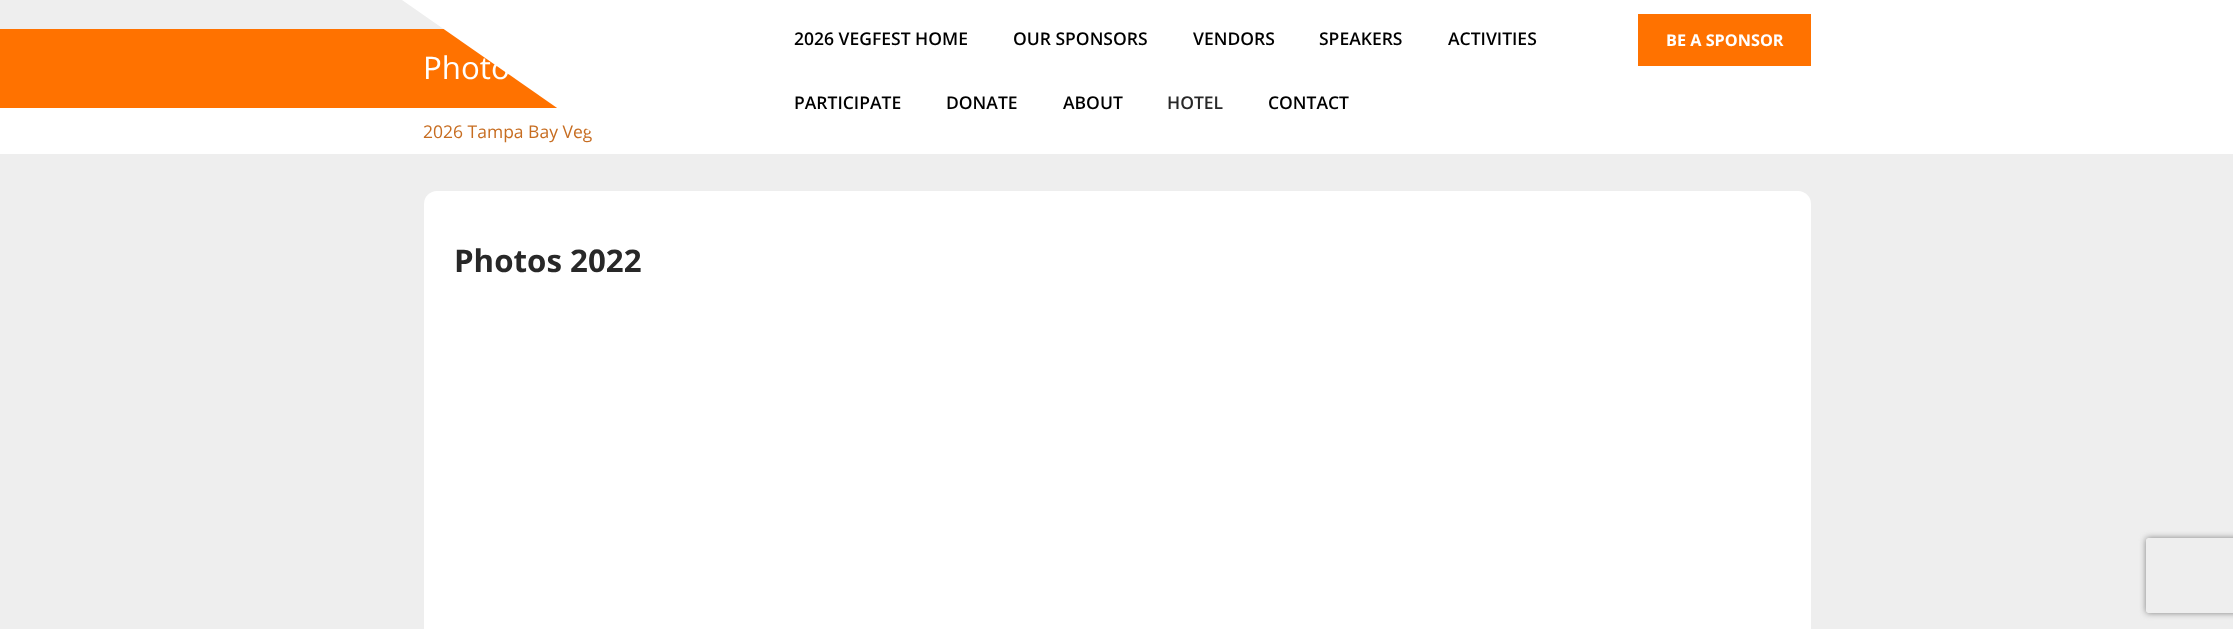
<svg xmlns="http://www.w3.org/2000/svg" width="2233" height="629">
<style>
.a{font:31.25px Open Sans;fill:#fff}
.b{font:17.5px Open Sans;fill:#c76d21}
.c{font:600 17.5px Open Sans;fill:#000}
.d{font:600 17.5px Open Sans;fill:#282828}
.e{font:bold 16.25px Open Sans;fill:#fff}
.f{font:bold 31.25px Open Sans;fill:#282828}
</style>
<defs>
<clipPath id="clip1"><path d="M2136 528h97v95h-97zm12.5 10h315c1.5 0 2.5 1 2.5 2.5v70c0 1.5-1 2.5-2.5 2.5h-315c-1.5 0-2.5-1-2.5-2.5v-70c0-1.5 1-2.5 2.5-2.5z" clip-rule="evenodd"/></clipPath>
</defs>
<rect width="100%" height="100%" fill="#eee"/>
<path fill="#ff7200" d="M0 29h557v79H0z"/>
<path fill="#fff" d="M0 108h2233v46H0z"/>
<rect fill="#fff" x="424" y="191" width="1387" height="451" rx="13"/>
<g clip-path="url(#clip1)">
<rect fill="#808080" filter="blur(3px)" x="2146" y="538" width="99" height="75" rx="2.5"/>
</g>
<text class="a" x="423" y="79">Photo</text>
<text class="b" x="423" y="138">2026 Tampa Bay Veg</text>
<path fill="#fff" d="M402 0l201 140h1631v-140z"/>
<text class="c" x="794" y="45">2026 VEGFEST HOME</text>
<text class="c" x="1013" y="45">OUR SPONSORS</text>
<text class="c" x="1193" y="45">VENDORS</text>
<text class="c" x="1319" y="45">SPEAKERS</text>
<text class="c" x="1448" y="45">ACTIVITIES</text>
<text class="c" x="794" y="109">PARTICIPATE</text>
<text class="c" x="946" y="109">DONATE</text>
<text class="c" x="1063" y="109">ABOUT</text>
<text class="d" x="1167" y="109">HOTEL</text>
<text class="c" x="1268" y="109">CONTACT</text>
<path fill="#ff7200" d="M1638 14h173v52H1638z"/>
<text class="e" x="1666" y="46">BE A SPONSOR</text>
<text class="f" x="454" y="272">Photos 2022</text>
</svg>
